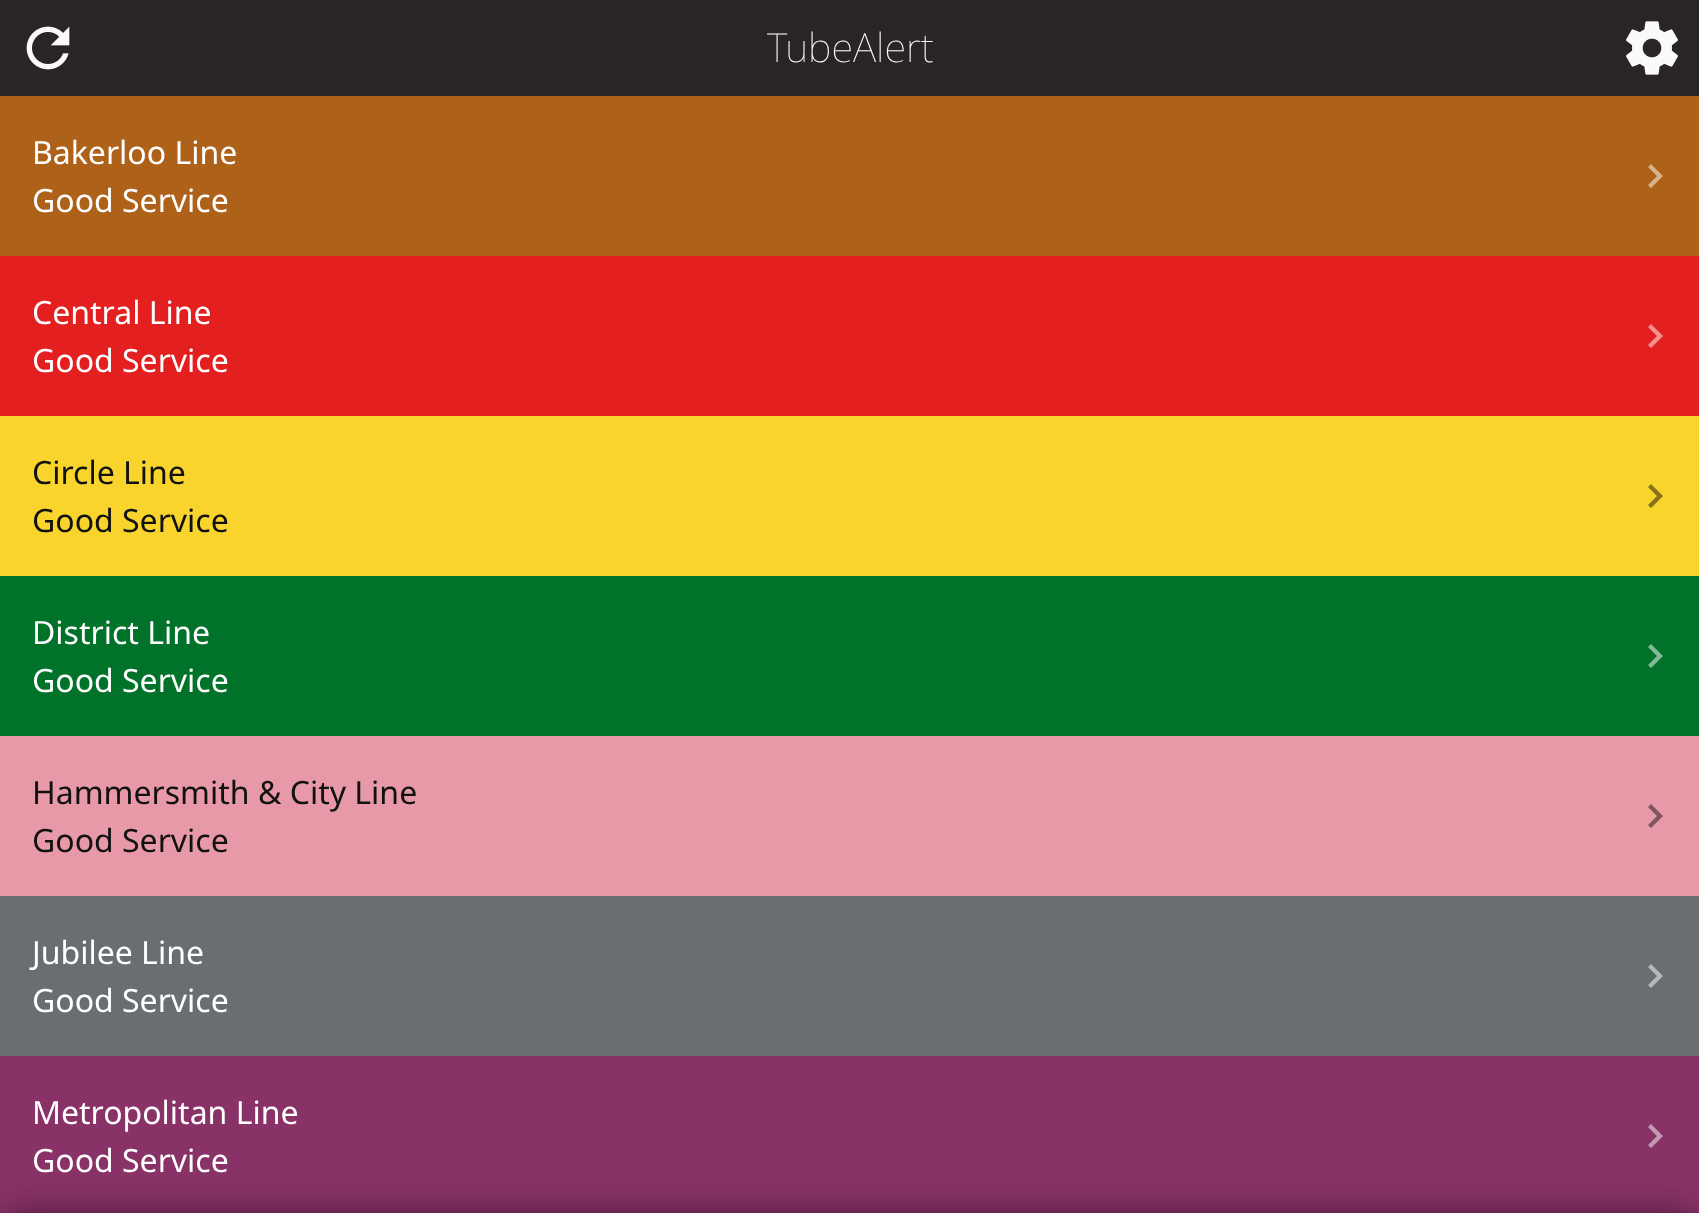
<svg xmlns="http://www.w3.org/2000/svg" width="1699" height="1213">
<style>
.a{font:100 40px Noto Sans;fill:#fafaf9}
.b{font:32px Noto Sans;fill:#fff}
.c{font:32px Noto Sans;fill:#111}
</style>
<rect width="100%" height="100%" fill="#ae6118"/>
<path fill="#292524" d="M0 0h1699v96H0z"/>
<image href="1.png" x="26" y="26" width="44" height="44"/>
<image href="2.png" x="1626" y="21" width="52" height="54"/>
<path fill="#d7b08c" d="M1648 185l9-9l-9-9l3-3l12 12l-12 12z"/>
<path fill="#e41f1f" d="M0 256h1699v160H0z"/>
<path fill="#f28f8f" d="M1648 345l9-9l-9-9l3-3l12 12l-12 12z"/>
<path fill="#f8d42d" d="M0 416h1699v160H0z"/>
<path fill="#85731f" d="M1648 505l9-9l-9-9l3-3l12 12l-12 12z"/>
<path fill="#007229" d="M0 576h1699v160H0z"/>
<path fill="#80b994" d="M1648 665l9-9l-9-9l3-3l12 12l-12 12z"/>
<path fill="#e899a8" d="M0 736h1699v160H0z"/>
<path fill="#7d555d" d="M1648 825l9-9l-9-9l3-3l12 12l-12 12z"/>
<path fill="#686e72" d="M0 896h1699v160H0z"/>
<path fill="#b4b7b9" d="M1648 985l9-9l-9-9l3-3l12 12l-12 12z"/>
<path fill="#893267" d="M0 1056h1699v157H0z"/>
<path fill="#c499b3" d="M1648 1145l9-9l-9-9l3-3l12 12l-12 12z"/>
<rect fill="#00000080" filter="blur(16px)" y="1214" width="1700" height="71" rx="24"/>
<text class="a" x="767" y="62">TubeAlert</text>
<text class="b" x="32" y="164">Bakerloo Line</text>
<text class="b" x="32" y="212">Good Service</text>
<text class="b" x="32" y="324">Central Line</text>
<text class="b" x="32" y="372">Good Service</text>
<text class="c" x="32" y="484">Circle Line</text>
<text class="c" x="32" y="532">Good Service</text>
<text class="b" x="32" y="644">District Line</text>
<text class="b" x="32" y="692">Good Service</text>
<text class="c" x="32" y="804">Hammersmith &amp; City Line</text>
<text class="c" x="32" y="852">Good Service</text>
<text class="b" x="32" y="964">Jubilee Line</text>
<text class="b" x="32" y="1012">Good Service</text>
<text class="b" x="32" y="1124">Metropolitan Line</text>
<text class="b" x="32" y="1172">Good Service</text>
</svg>
